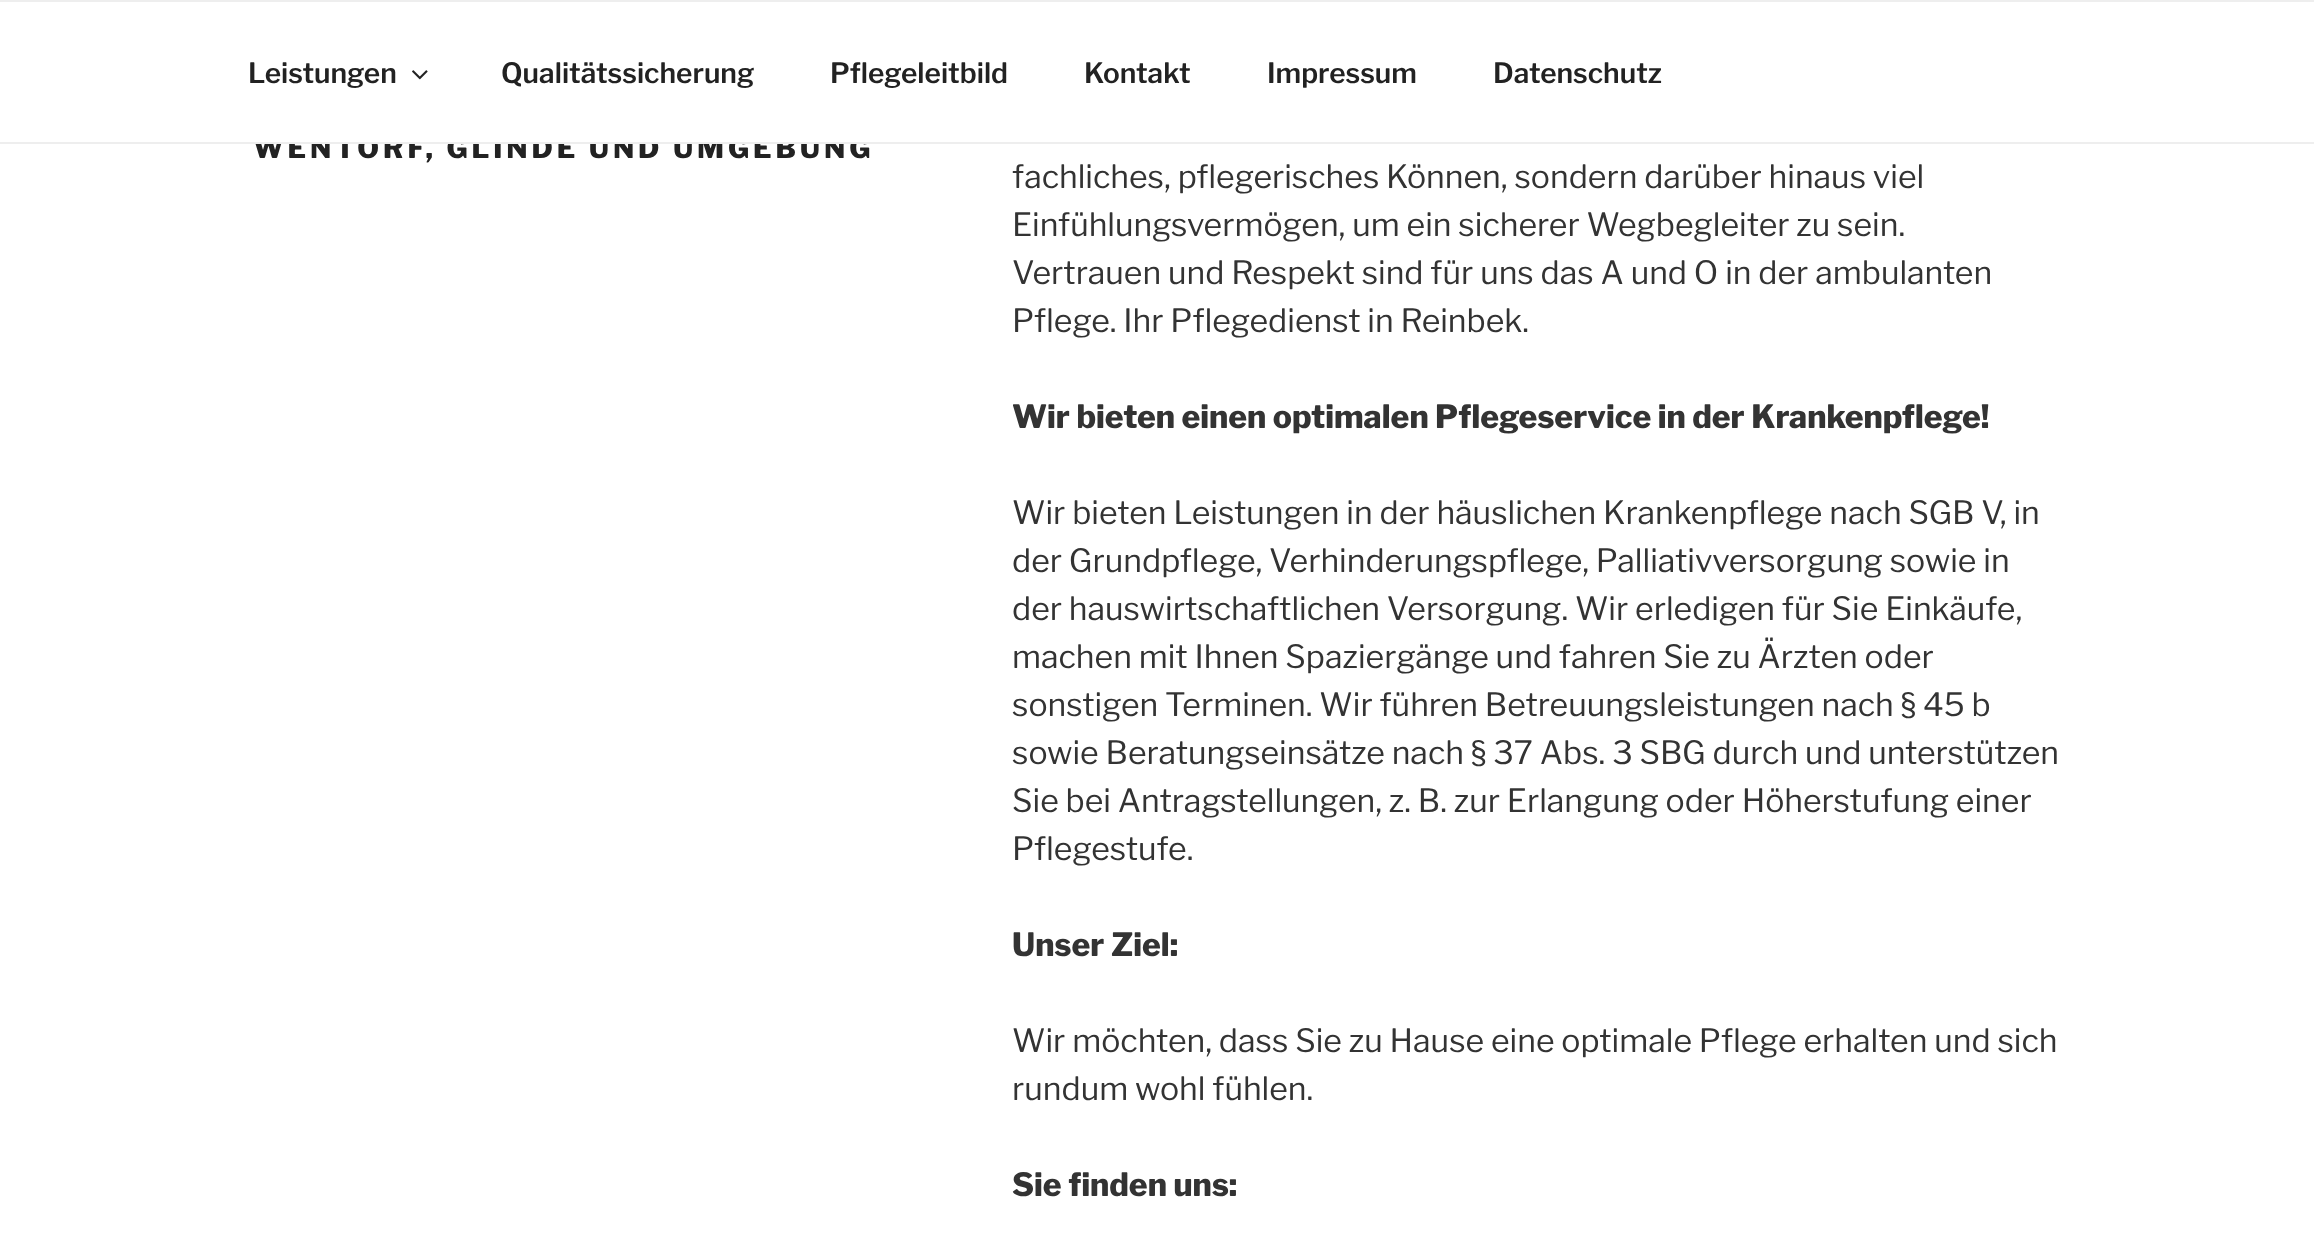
<svg xmlns="http://www.w3.org/2000/svg" width="2314" height="1242">
<style>
.a{font:100 28px 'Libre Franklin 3';fill:#222}
.b{font:100 28px Libre Franklin;letter-spacing:3.9px;fill:#222}
.c{font:100 32px 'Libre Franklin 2';fill:#333}
.d{font:100 32px Libre Franklin;fill:#333}
</style>
<rect width="100%" height="100%" fill="#fff"/>
<path fill="#eee" d="M0 0h2314v2H0z"/>
<image href="1.png" x="412" y="70" width="16" height="10"/>
<text class="a" x="248" y="83">Leistungen</text>
<text class="a" x="501" y="83">Qualitätssicherung</text>
<text class="a" x="830" y="83">Pflegeleitbild</text>
<text class="a" x="1084" y="83">Kontakt</text>
<text class="a" x="1267" y="83">Impressum</text>
<text class="a" x="1493" y="83">Datenschutz</text>
<text class="b" x="253" y="158">WENTORF, GLINDE UND UMGEBUNG</text>
<path fill="#eee" d="M0 142h2314v2H0z"/>
<path fill="#fff" d="M253 136h616v6H253z"/>
<text class="c" x="1012" y="188">fachliches, pflegerisches Können, sondern darüber hinaus viel</text>
<text class="c" x="1012" y="236">Einfühlungsvermögen, um ein sicherer Wegbegleiter zu sein.</text>
<text class="c" x="1012" y="284">Vertrauen und Respekt sind für uns das A und O in der ambulanten</text>
<text class="c" x="1012" y="332">Pflege. Ihr Pflegedienst in Reinbek.</text>
<text class="d" x="1012" y="428">Wir bieten einen optimalen Pflegeservice in der Krankenpflege!</text>
<text class="c" x="1012" y="524">Wir bieten Leistungen in der häuslichen Krankenpflege nach SGB V, in</text>
<text class="c" x="1012" y="572">der Grundpflege, Verhinderungspflege, Palliativversorgung sowie in</text>
<text class="c" x="1012" y="620">der hauswirtschaftlichen Versorgung. Wir erledigen für Sie Einkäufe,</text>
<text class="c" x="1012" y="668">machen mit Ihnen Spaziergänge und fahren Sie zu Ärzten oder</text>
<text class="c" x="1012" y="716">sonstigen Terminen. Wir führen Betreuungsleistungen nach § 45 b</text>
<text class="c" x="1012" y="764">sowie Beratungseinsätze nach § 37 Abs. 3 SBG durch und unterstützen</text>
<text class="c" x="1012" y="812">Sie bei Antragstellungen, z. B. zur Erlangung oder Höherstufung einer</text>
<text class="c" x="1012" y="860">Pflegestufe.</text>
<text class="d" x="1012" y="956">Unser Ziel:</text>
<text class="c" x="1012" y="1052">Wir möchten, dass Sie zu Hause eine optimale Pflege erhalten und sich</text>
<text class="c" x="1012" y="1100">rundum wohl fühlen.</text>
<text class="d" x="1012" y="1196">Sie finden uns:</text>
</svg>
